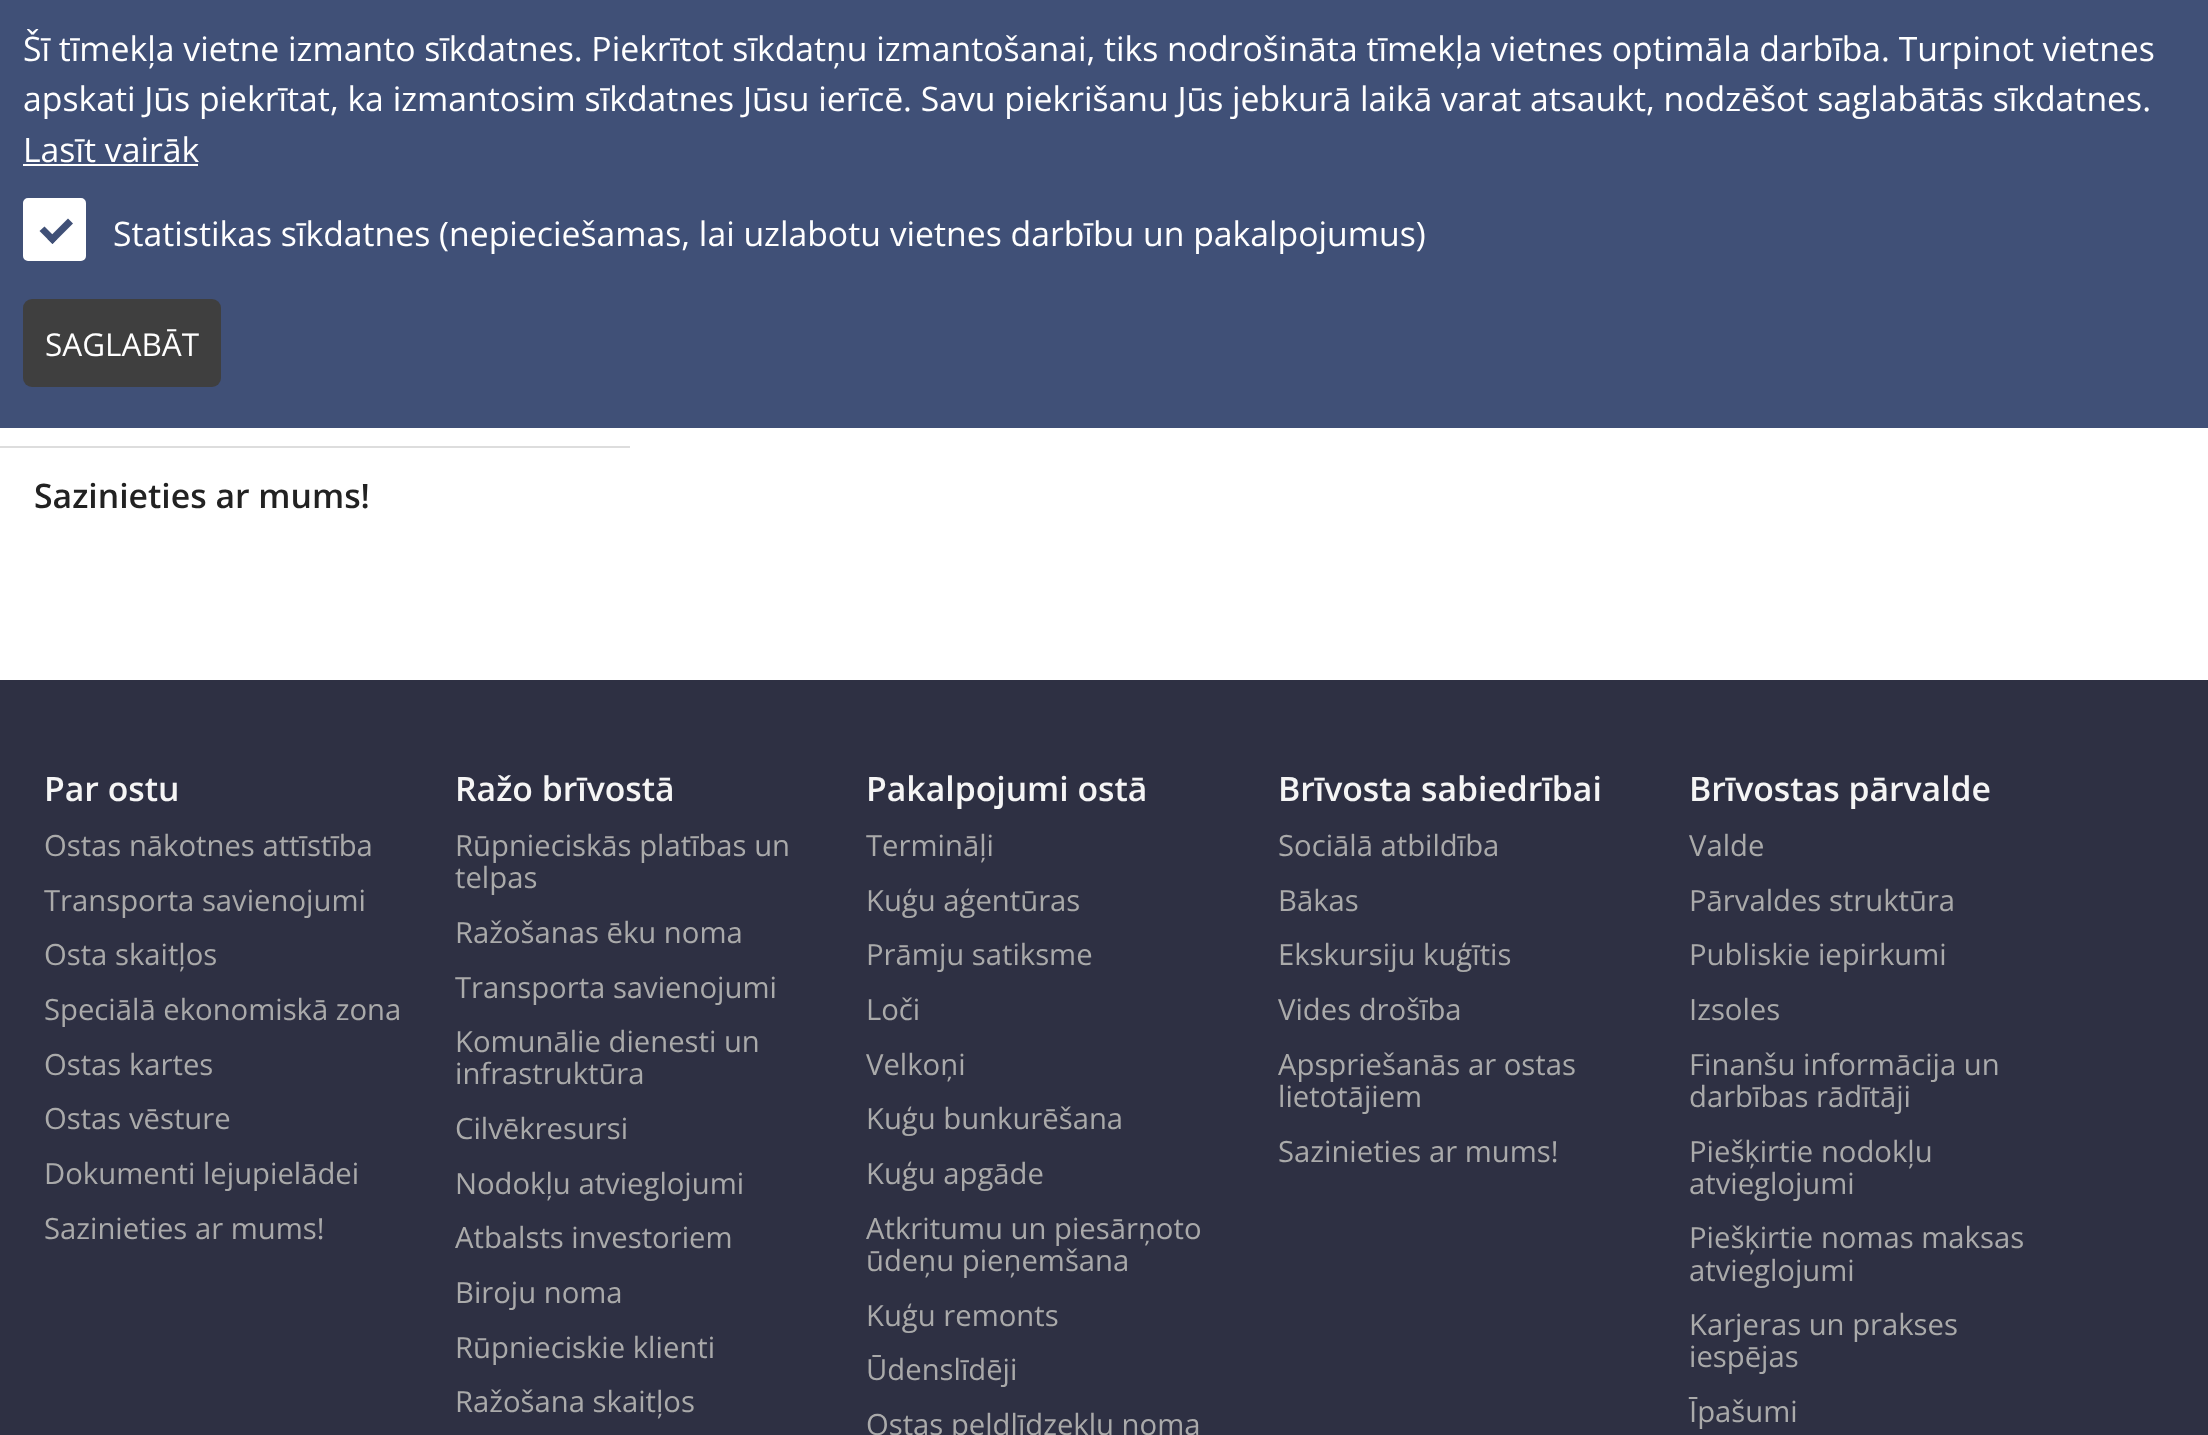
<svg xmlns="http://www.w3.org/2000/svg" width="2208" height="1435">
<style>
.a{font:33.75px Open Sans;fill:#fff}
.b{font:31.5px Open Sans;fill:#fff}
.c{font:600 33.75px Open Sans;fill:#222}
.d{font:600 33.75px Open Sans;fill:#f5f5f5}
.e{font:29.25px Open Sans;fill:#aaa}
</style>
<rect width="100%" height="100%" fill="#fff"/>
<path fill="#405077" d="M0 0h2208v428H0z"/>
<path fill="#fff" d="M23 164h175v2H23z"/>
<rect fill="#fff" stroke="#fff" stroke-width="5" x="25.5" y="200.5" width="58" height="58" rx="2.5"/>
<path fill="#405077" d="M68 218.5l5 5l-20.5 20.5l-5-5z"/>
<path fill="#405077" d="M44.5 226.5l12.5 12.5l-4.5 5l-13-13z"/>
<rect fill="#3f3f3f" x="23" y="299" width="198" height="88" rx="9"/>
<path fill="#ddd" d="M0 446h630v2H0z"/>
<path fill="#2e3043" d="M0 680h2208v755H0z"/>
<text class="a" x="23" y="61">Šī tīmekļa vietne izmanto sīkdatnes. Piekrītot sīkdatņu izmantošanai, tiks nodrošināta tīmekļa vietnes optimāla darbība. Turpinot vietnes</text>
<text class="a" x="23" y="111">apskati Jūs piekrītat, ka izmantosim sīkdatnes Jūsu ierīcē. Savu piekrišanu Jūs jebkurā laikā varat atsaukt, nodzēšot saglabātās sīkdatnes.</text>
<text class="a" x="23" y="162">Lasīt vairāk</text>
<text class="a" x="113" y="246">Statistikas sīkdatnes (nepieciešamas, lai uzlabotu vietnes darbību un pakalpojumus)</text>
<text class="b" x="45" y="356">SAGLABĀT</text>
<text class="c" x="34" y="508">Sazinieties ar mums!</text>
<text class="d" x="44" y="801">Par ostu</text>
<text class="e" x="44" y="856">Ostas nākotnes attīstība</text>
<text class="e" x="44" y="911">Transporta savienojumi</text>
<text class="e" x="44" y="965">Osta skaitļos</text>
<text class="e" x="44" y="1020">Speciālā ekonomiskā zona</text>
<text class="e" x="44" y="1075">Ostas kartes</text>
<text class="e" x="44" y="1129">Ostas vēsture</text>
<text class="e" x="44" y="1184">Dokumenti lejupielādei</text>
<text class="e" x="44" y="1239">Sazinieties ar mums!</text>
<text class="d" x="455" y="801">Ražo brīvostā</text>
<text class="e" x="455" y="856">Rūpnieciskās platības un</text>
<text class="e" x="455" y="888">telpas</text>
<text class="e" x="455" y="943">Ražošanas ēku noma</text>
<text class="e" x="455" y="998">Transporta savienojumi</text>
<text class="e" x="455" y="1052">Komunālie dienesti un</text>
<text class="e" x="455" y="1084">infrastruktūra</text>
<text class="e" x="455" y="1139">Cilvēkresursi</text>
<text class="e" x="455" y="1194">Nodokļu atvieglojumi</text>
<text class="e" x="455" y="1248">Atbalsts investoriem</text>
<text class="e" x="455" y="1303">Biroju noma</text>
<text class="e" x="455" y="1358">Rūpnieciskie klienti</text>
<text class="e" x="455" y="1412">Ražošana skaitļos</text>
<text class="d" x="866" y="801">Pakalpojumi ostā</text>
<text class="e" x="866" y="856">Termināļi</text>
<text class="e" x="866" y="911">Kuģu aģentūras</text>
<text class="e" x="866" y="965">Prāmju satiksme</text>
<text class="e" x="866" y="1020">Loči</text>
<text class="e" x="866" y="1075">Velkoņi</text>
<text class="e" x="866" y="1129">Kuģu bunkurēšana</text>
<text class="e" x="866" y="1184">Kuģu apgāde</text>
<text class="e" x="866" y="1239">Atkritumu un piesārņoto</text>
<text class="e" x="866" y="1271">ūdeņu pieņemšana</text>
<text class="e" x="866" y="1326">Kuģu remonts</text>
<text class="e" x="866" y="1380">Ūdenslīdēji</text>
<text class="e" x="866" y="1435">Ostas peldlīdzekļu noma</text>
<text class="d" x="1278" y="801">Brīvosta sabiedrībai</text>
<text class="e" x="1278" y="856">Sociālā atbildība</text>
<text class="e" x="1278" y="911">Bākas</text>
<text class="e" x="1278" y="965">Ekskursiju kuģītis</text>
<text class="e" x="1278" y="1020">Vides drošība</text>
<text class="e" x="1278" y="1075">Apspriešanās ar ostas</text>
<text class="e" x="1278" y="1107">lietotājiem</text>
<text class="e" x="1278" y="1162">Sazinieties ar mums!</text>
<text class="d" x="1689" y="801">Brīvostas pārvalde</text>
<text class="e" x="1689" y="856">Valde</text>
<text class="e" x="1689" y="911">Pārvaldes struktūra</text>
<text class="e" x="1689" y="965">Publiskie iepirkumi</text>
<text class="e" x="1689" y="1020">Izsoles</text>
<text class="e" x="1689" y="1075">Finanšu informācija un</text>
<text class="e" x="1689" y="1107">darbības rādītāji</text>
<text class="e" x="1689" y="1162">Piešķirtie nodokļu</text>
<text class="e" x="1689" y="1194">atvieglojumi</text>
<text class="e" x="1689" y="1248">Piešķirtie nomas maksas</text>
<text class="e" x="1689" y="1281">atvieglojumi</text>
<text class="e" x="1689" y="1335">Karjeras un prakses</text>
<text class="e" x="1689" y="1367">iespējas</text>
<text class="e" x="1689" y="1422">Īpašumi</text>
</svg>
